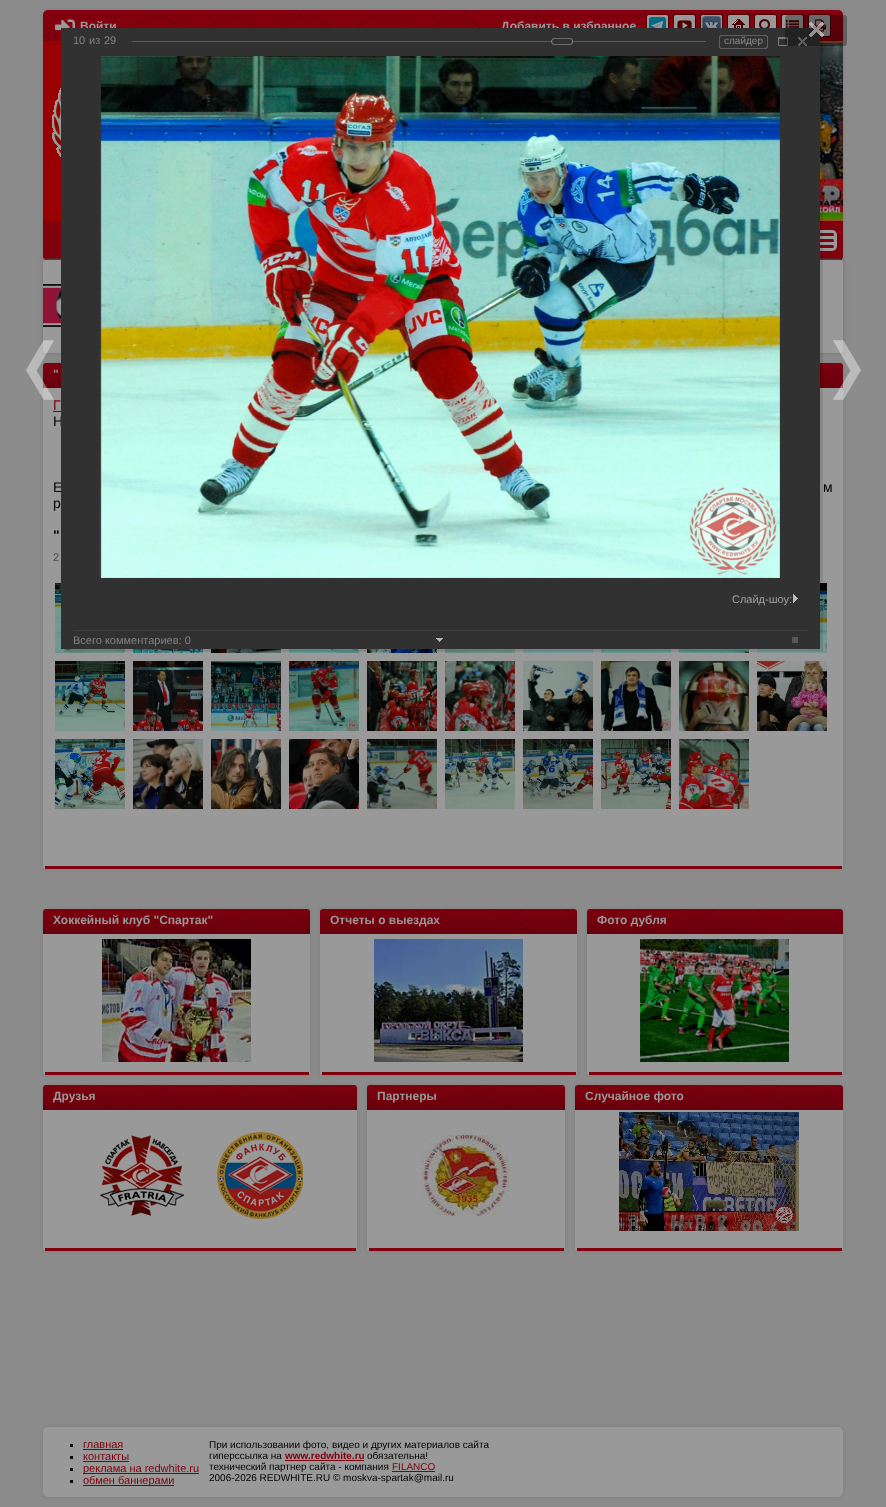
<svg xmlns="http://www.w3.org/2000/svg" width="886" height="1507">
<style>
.a{font:bold 12px Liberation Sans;fill:#999}
.b{font:14px Liberation Sans;fill:#80000e}
.c{font:14px Liberation Sans;fill:#000}
.d{font:bold 14px Liberation Sans;fill:#000}
.e{font:11px Liberation Sans;fill:#4c4c4c}
.f{font:11px Liberation Sans;fill:#80000e}
.g{font:10px Liberation Sans;fill:#000}
.h{font:bold 10px Liberation Sans;fill:#80000e}
.i{font:10px Liberation Sans;fill:#80000e}
.j{font:11px Liberation Sans;fill:#838383}
.k{font:10px Liberation Sans;fill:#8c8c8c}
.l{font:11px Liberation Sans;fill:#a2a2a2}
</style>
<rect width="100%" height="100%" fill="#8c8c8c"/>
<rect fill="#7d7d7d" filter="blur(2.5px)" x="43" y="10" width="800" height="343" rx="3"/>
<image href="1.png" x="43" y="10" width="800" height="31"/>
<image href="2.png" x="55" y="19" width="20" height="12"/>
<image href="3.png" x="646" y="14" width="23" height="14"/>
<image href="4.png" x="673" y="14" width="23" height="14"/>
<image href="5.png" x="700" y="14" width="23" height="14"/>
<image href="6.png" x="727" y="14" width="23" height="14"/>
<image href="7.png" x="754" y="14" width="23" height="14"/>
<image href="8.png" x="781" y="14" width="23" height="14"/>
<image href="9.png" x="808" y="14" width="23" height="23"/>
<path fill="#990101" d="M43 41h18v180H43z"/>
<image href="10.png" x="820" y="41" width="23" height="180"/>
<image href="11.png" x="52" y="88" width="9" height="69"/>
<path fill="#80000e" d="M43 221h800v36c0 1.5-1.5 3-3 3h-794c-1.5 0-3-1.5-3-3z"/>
<path fill="#490008" d="M45 257h797v3H45z"/>
<rect fill="#7d7d7d" filter="blur(2.5px)" x="43" y="260" width="800" height="93" rx="3"/>
<path fill="#80000e" d="M43 255h800v2H43z"/>
<rect fill="#999" x="811" y="230" width="26" height="21" rx="5"/>
<rect fill="#80000e" x="814" y="233" width="20" height="3" rx="1.5"/>
<rect fill="#80000e" x="814" y="239" width="20" height="3" rx="1.5"/>
<rect fill="#80000e" x="814" y="245" width="20" height="3" rx="1.5"/>
<rect fill="#999" x="43" y="260" width="800" height="93" rx="3"/>
<image href="12.png" x="43" y="278" width="18" height="53"/>
<rect fill="#7d7d7d" filter="blur(2.5px)" x="43" y="363" width="800" height="506" rx="3"/>
<rect fill="#999" x="43" y="363" width="800" height="506" rx="3"/>
<path fill="#80000e" d="M45 866h797v3H45z"/>
<image href="13.png" x="43" y="363" width="800" height="25"/>
<path fill="#80000e" d="M53 411h8v1H53z"/>
<image href="14.png" x="55" y="583" width="70" height="70"/>
<image href="15.png" x="133" y="649" width="70" height="4"/>
<image href="16.png" x="211" y="649" width="70" height="4"/>
<image href="17.png" x="289" y="649" width="70" height="4"/>
<image href="18.png" x="367" y="649" width="70" height="4"/>
<image href="19.png" x="445" y="649" width="70" height="4"/>
<image href="20.png" x="523" y="649" width="70" height="4"/>
<image href="21.png" x="601" y="649" width="70" height="4"/>
<image href="22.png" x="679" y="649" width="70" height="4"/>
<image href="23.png" x="757" y="583" width="70" height="70"/>
<image href="24.png" x="55" y="661" width="70" height="70"/>
<image href="25.png" x="133" y="661" width="70" height="70"/>
<image href="26.png" x="211" y="661" width="70" height="70"/>
<image href="27.png" x="289" y="661" width="70" height="70"/>
<image href="28.png" x="367" y="661" width="70" height="70"/>
<image href="29.png" x="445" y="661" width="70" height="70"/>
<image href="30.png" x="523" y="661" width="70" height="70"/>
<image href="31.png" x="601" y="661" width="70" height="70"/>
<image href="32.png" x="679" y="661" width="70" height="70"/>
<image href="33.png" x="757" y="661" width="70" height="70"/>
<image href="34.png" x="55" y="739" width="70" height="70"/>
<image href="35.png" x="133" y="739" width="70" height="70"/>
<image href="36.png" x="211" y="739" width="70" height="70"/>
<image href="37.png" x="289" y="739" width="70" height="70"/>
<image href="38.png" x="367" y="739" width="70" height="70"/>
<image href="39.png" x="445" y="739" width="70" height="70"/>
<image href="40.png" x="523" y="739" width="70" height="70"/>
<image href="41.png" x="601" y="739" width="70" height="70"/>
<image href="42.png" x="679" y="739" width="70" height="70"/>
<rect fill="#7d7d7d" filter="blur(2.5px)" x="43" y="909" width="267" height="166" rx="3"/>
<rect fill="#999" x="43" y="909" width="267" height="166" rx="3"/>
<path fill="#80000e" d="M45 1072h264v3H45z"/>
<image href="43.png" x="43" y="909" width="267" height="25"/>
<image href="44.png" x="102" y="939" width="149" height="123"/>
<rect fill="#7d7d7d" filter="blur(2.5px)" x="320" y="909" width="257" height="166" rx="3"/>
<rect fill="#999" x="320" y="909" width="257" height="166" rx="3"/>
<path fill="#80000e" d="M322 1072h254v3H322z"/>
<image href="45.png" x="320" y="909" width="257" height="25"/>
<image href="46.png" x="374" y="939" width="149" height="123"/>
<rect fill="#7d7d7d" filter="blur(2.5px)" x="587" y="909" width="256" height="166" rx="3"/>
<rect fill="#999" x="587" y="909" width="256" height="166" rx="3"/>
<path fill="#80000e" d="M589 1072h253v3H589z"/>
<image href="47.png" x="587" y="909" width="256" height="25"/>
<image href="48.png" x="640" y="939" width="149" height="123"/>
<rect fill="#7d7d7d" filter="blur(2.5px)" x="43" y="1085" width="314" height="166" rx="3"/>
<rect fill="#999" x="43" y="1085" width="314" height="166" rx="3"/>
<path fill="#80000e" d="M45 1248h311v3H45z"/>
<image href="49.png" x="43" y="1085" width="314" height="25"/>
<image href="50.png" x="100" y="1135" width="84" height="81"/>
<image href="51.png" x="217" y="1132" width="86" height="87"/>
<rect fill="#7d7d7d" filter="blur(2.5px)" x="367" y="1085" width="198" height="166" rx="3"/>
<rect fill="#999" x="367" y="1085" width="198" height="166" rx="3"/>
<path fill="#80000e" d="M369 1248h195v3H369z"/>
<image href="52.png" x="367" y="1085" width="198" height="25"/>
<image href="53.png" x="421" y="1135" width="90" height="82"/>
<rect fill="#7d7d7d" filter="blur(2.5px)" x="575" y="1085" width="268" height="166" rx="3"/>
<rect fill="#999" x="575" y="1085" width="268" height="166" rx="3"/>
<path fill="#80000e" d="M577 1248h265v3H577z"/>
<image href="54.png" x="575" y="1085" width="268" height="25"/>
<image href="55.png" x="619" y="1112" width="180" height="119"/>
<rect fill="#7d7d7d" filter="blur(2.5px)" x="43" y="1427" width="800" height="70" rx="5"/>
<rect fill="#999" x="43" y="1427" width="800" height="70" rx="5"/>
<path fill="#000" d="M70 1444h3v3H70z"/>
<path fill="#80000e" d="M83 1449h40v1H83z"/>
<path fill="#000" d="M70 1456h3v3H70z"/>
<path fill="#80000e" d="M83 1461h46v1H83z"/>
<path fill="#000" d="M70 1468h3v3H70z"/>
<path fill="#80000e" d="M83 1473h116v1H83z"/>
<path fill="#000" d="M70 1480h3v3H70z"/>
<path fill="#80000e" d="M83 1485h91v1H83z"/>
<path fill="#80000e" d="M285 1460h79v1H285z"/>
<path fill="#80000e" d="M392 1471h43v1H392z"/>
<path fill="#0000001a" d="M64 28h759v624H64z"/>
<image href="66.png" x="833" y="340" width="28" height="60"/>
<text class="a" x="80" y="30">Войти</text>
<text class="a" x="501" y="30">Добавить в избранное</text>
<text class="a" x="53" y="378">"</text>
<text class="b" x="53" y="410">Г</text>
<text class="c" x="53" y="426">Н</text>
<text class="c" x="53" y="492" word-spacing="3">Е</text>
<text class="c" x="823" y="492" word-spacing="3">м</text>
<text class="c" x="53" y="508">р</text>
<text class="d" x="53" y="540">"</text>
<text class="e" x="53" y="561">2</text>
<text class="a" x="53" y="924">Хоккейный клуб "Спартак"</text>
<text class="a" x="330" y="924">Отчеты о выездах</text>
<text class="a" x="597" y="924">Фото дубля</text>
<text class="a" x="53" y="1100">Друзья</text>
<text class="a" x="377" y="1100">Партнеры</text>
<text class="a" x="585" y="1100">Случайное фото</text>
<text class="f" x="83" y="1448">главная</text>
<text class="f" x="83" y="1460">контакты</text>
<text class="f" x="83" y="1472">реклама на redwhite.ru</text>
<text class="f" x="83" y="1484">обмен баннерами</text>
<text class="g" x="209" y="1448">При использовании фото, видео и других материалов сайта</text>
<text class="g" x="209" y="1459">гиперссылка на</text>
<text class="h" x="285" y="1459">www.redwhite.ru</text>
<text class="g" x="367" y="1459">обязательна!</text>
<text class="g" x="209" y="1470">технический партнер сайта - компания</text>
<text class="i" x="392" y="1470">FILANCO</text>
<text class="g" x="209" y="1481">2006-2026 REDWHITE.RU © moskva-spartak@mail.ru</text>
<image href="56.png" x="26" y="340" width="28" height="60"/>
<path fill="#313131" d="M61 28h759v621H61z"/>
<text class="j" x="73" y="44">10</text>
<text class="j" x="89" y="44">из</text>
<text class="j" x="104" y="44">29</text>
<path fill="#5a5a5a" d="M132 41h574v1H132z"/>
<image href="57.png" x="551" y="38" width="22" height="7"/>
<image href="58.png" x="719" y="35" width="46" height="14"/>
<text class="k" x="724" y="44">слайдер</text>
<image href="59.png" x="765" y="35" width="3" height="14"/>
<image href="60.png" x="778" y="37" width="10" height="9"/>
<image href="61.png" x="798" y="37" width="9" height="9"/>
<image href="62.png" x="100" y="56" width="680" height="522"/>
<path fill="#3d3d3d" d="M73 630h735v1H73z"/>
<text class="l" x="732" y="603">Слайд-шоу:</text>
<image href="63.png" x="793" y="594" width="5" height="9"/>
<text class="j" x="73" y="644">Всего комментариев: 0</text>
<image href="64.png" x="436" y="638" width="7" height="4"/>
<path fill="#585858" d="M792 637h6v6H792z"/>
<image href="65.png" x="785" y="15" width="62" height="31"/>
</svg>
